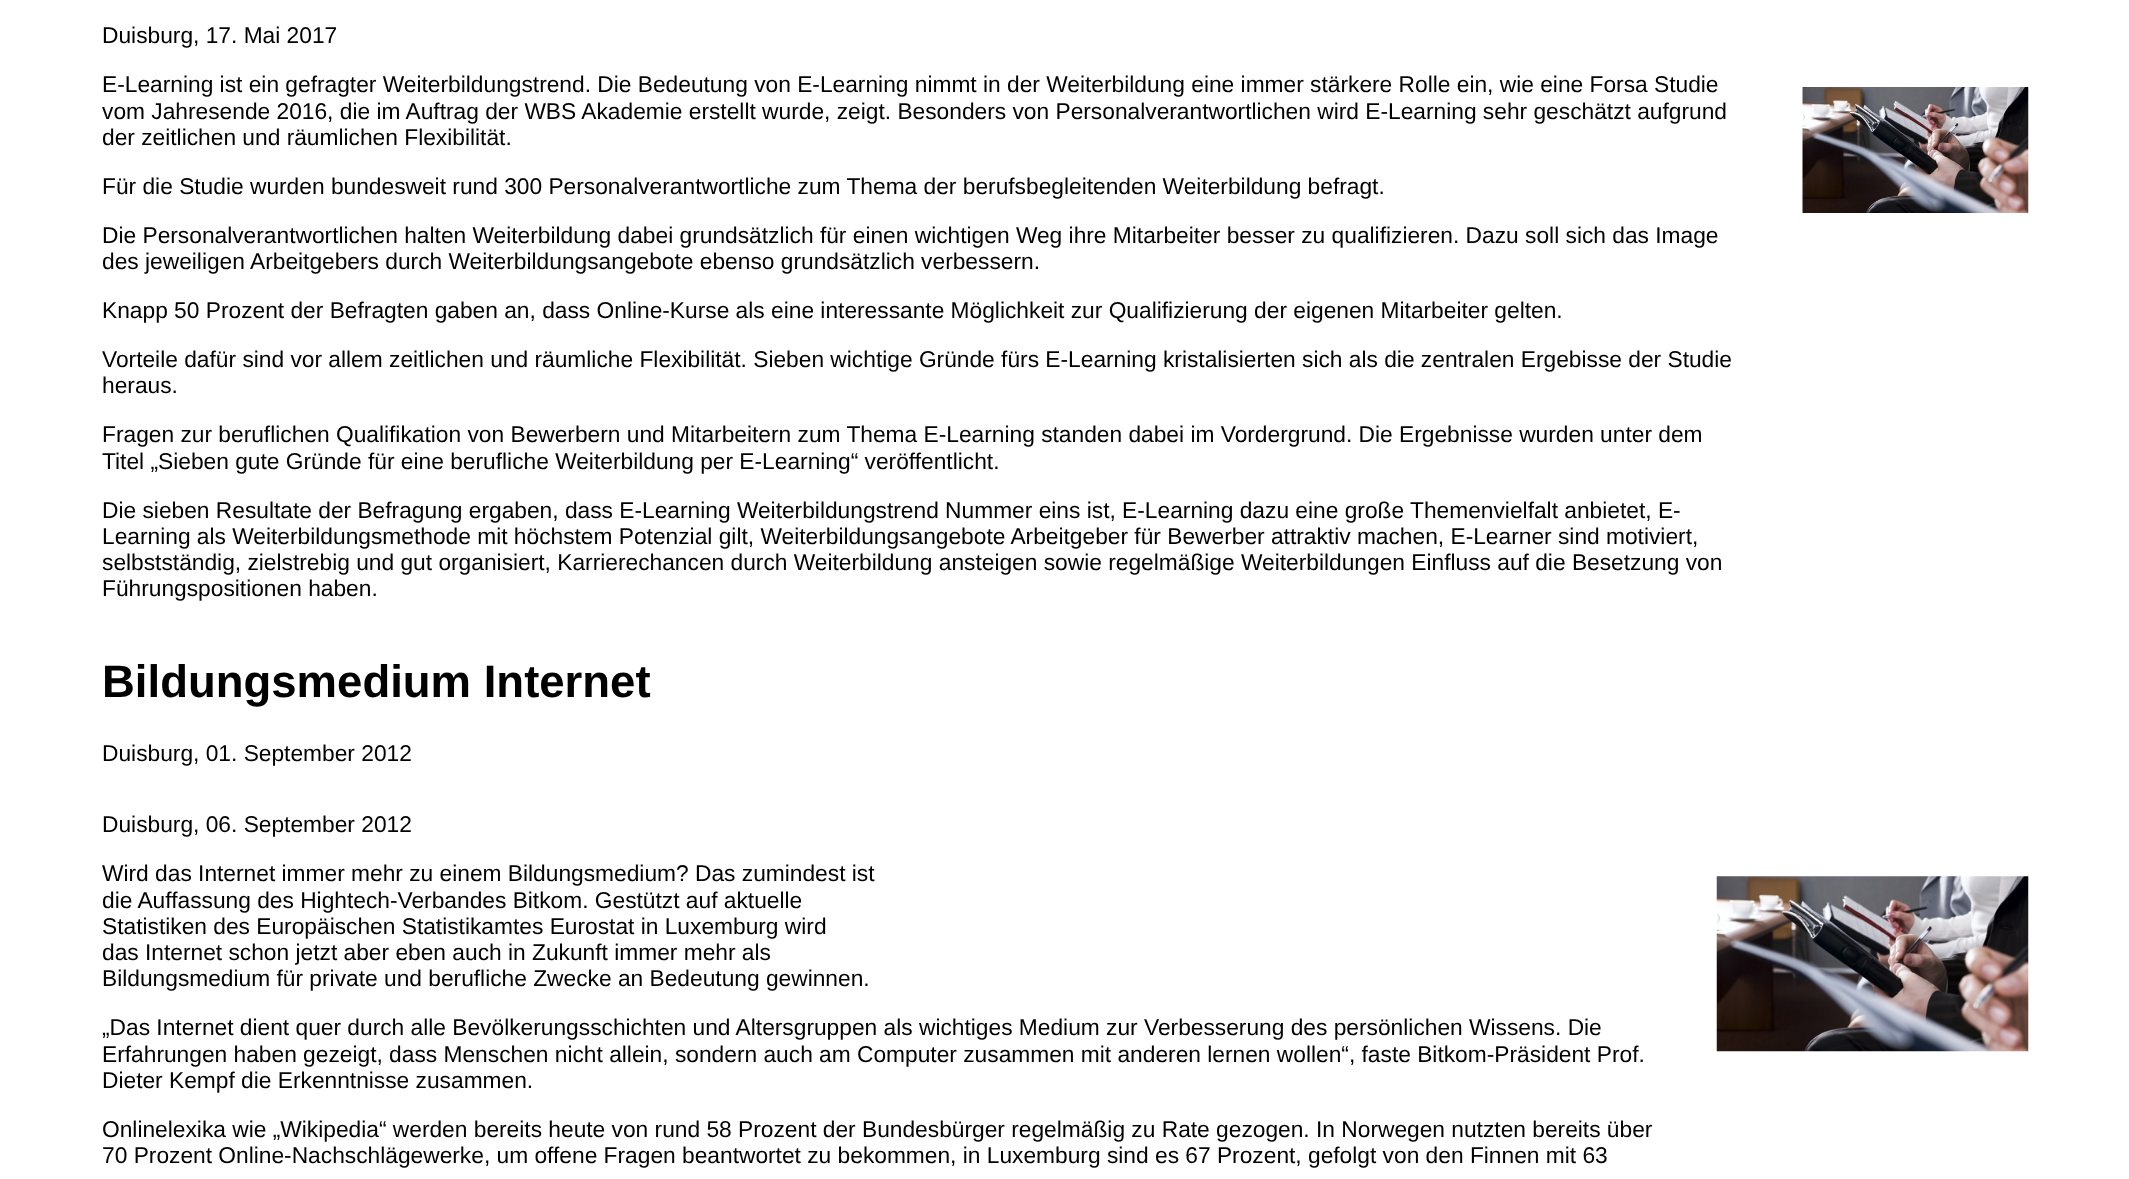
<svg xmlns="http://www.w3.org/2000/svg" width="2129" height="1179">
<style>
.a{font:22.75px Liberation Sans;fill:#000}
.b{font:bold 45.5px Liberation Sans;fill:#000}
</style>
<rect width="100%" height="100%" fill="#fff"/>
<image href="1.png" x="1802" y="87" width="227" height="126"/>
<image href="2.png" x="1716" y="876" width="313" height="176"/>
<text class="a" x="102" y="43">Duisburg, 17. Mai 2017</text>
<text class="a" x="102" y="92">E-Learning ist ein gefragter Weiterbildungstrend. Die Bedeutung von E-Learning nimmt in der Weiterbildung eine immer stärkere Rolle ein, wie eine Forsa Studie</text>
<text class="a" x="102" y="119">vom Jahresende 2016, die im Auftrag der WBS Akademie erstellt wurde, zeigt. Besonders von Personalverantwortlichen wird E-Learning sehr geschätzt aufgrund</text>
<text class="a" x="102" y="145">der zeitlichen und räumlichen Flexibilität.</text>
<text class="a" x="102" y="194">Für die Studie wurden bundesweit rund 300 Personalverantwortliche zum Thema der berufsbegleitenden Weiterbildung befragt.</text>
<text class="a" x="102" y="243">Die Personalverantwortlichen halten Weiterbildung dabei grundsätzlich für einen wichtigen Weg ihre Mitarbeiter besser zu qualifizieren. Dazu soll sich das Image</text>
<text class="a" x="102" y="269">des jeweiligen Arbeitgebers durch Weiterbildungsangebote ebenso grundsätzlich verbessern.</text>
<text class="a" x="102" y="318">Knapp 50 Prozent der Befragten gaben an, dass Online-Kurse als eine interessante Möglichkeit zur Qualifizierung der eigenen Mitarbeiter gelten.</text>
<text class="a" x="102" y="367">Vorteile dafür sind vor allem zeitlichen und räumliche Flexibilität. Sieben wichtige Gründe fürs E-Learning kristalisierten sich als die zentralen Ergebisse der Studie</text>
<text class="a" x="102" y="393">heraus.</text>
<text class="a" x="102" y="442">Fragen zur beruflichen Qualifikation von Bewerbern und Mitarbeitern zum Thema E-Learning standen dabei im Vordergrund. Die Ergebnisse wurden unter dem</text>
<text class="a" x="102" y="469">Titel „Sieben gute Gründe für eine berufliche Weiterbildung per E-Learning“ veröffentlicht.</text>
<text class="a" x="102" y="518">Die sieben Resultate der Befragung ergaben, dass E-Learning Weiterbildungstrend Nummer eins ist, E-Learning dazu eine große Themenvielfalt anbietet, E-</text>
<text class="a" x="102" y="544">Learning als Weiterbildungsmethode mit höchstem Potenzial gilt, Weiterbildungsangebote Arbeitgeber für Bewerber attraktiv machen, E-Learner sind motiviert,</text>
<text class="a" x="102" y="570">selbstständig, zielstrebig und gut organisiert, Karrierechancen durch Weiterbildung ansteigen sowie regelmäßige Weiterbildungen Einfluss auf die Besetzung von</text>
<text class="a" x="102" y="596">Führungspositionen haben.</text>
<text class="b" x="102" y="697">Bildungsmedium Internet</text>
<text class="a" x="102" y="761">Duisburg, 01. September 2012</text>
<text class="a" x="102" y="832">Duisburg, 06. September 2012</text>
<text class="a" x="102" y="881">Wird das Internet immer mehr zu einem Bildungsmedium? Das zumindest ist</text>
<text class="a" x="102" y="908">die Auffassung des Hightech-Verbandes Bitkom. Gestützt auf aktuelle</text>
<text class="a" x="102" y="934">Statistiken des Europäischen Statistikamtes Eurostat in Luxemburg wird</text>
<text class="a" x="102" y="960">das Internet schon jetzt aber eben auch in Zukunft immer mehr als</text>
<text class="a" x="102" y="986">Bildungsmedium für private und berufliche Zwecke an Bedeutung gewinnen.</text>
<text class="a" x="102" y="1035">„Das Internet dient quer durch alle Bevölkerungsschichten und Altersgruppen als wichtiges Medium zur Verbesserung des persönlichen Wissens. Die</text>
<text class="a" x="102" y="1062">Erfahrungen haben gezeigt, dass Menschen nicht allein, sondern auch am Computer zusammen mit anderen lernen wollen“, faste Bitkom-Präsident Prof.</text>
<text class="a" x="102" y="1088">Dieter Kempf die Erkenntnisse zusammen.</text>
<text class="a" x="102" y="1137">Onlinelexika wie „Wikipedia“ werden bereits heute von rund 58 Prozent der Bundesbürger regelmäßig zu Rate gezogen. In Norwegen nutzten bereits über</text>
<text class="a" x="102" y="1163">70 Prozent Online-Nachschlägewerke, um offene Fragen beantwortet zu bekommen, in Luxemburg sind es 67 Prozent, gefolgt von den Finnen mit 63</text>
</svg>
